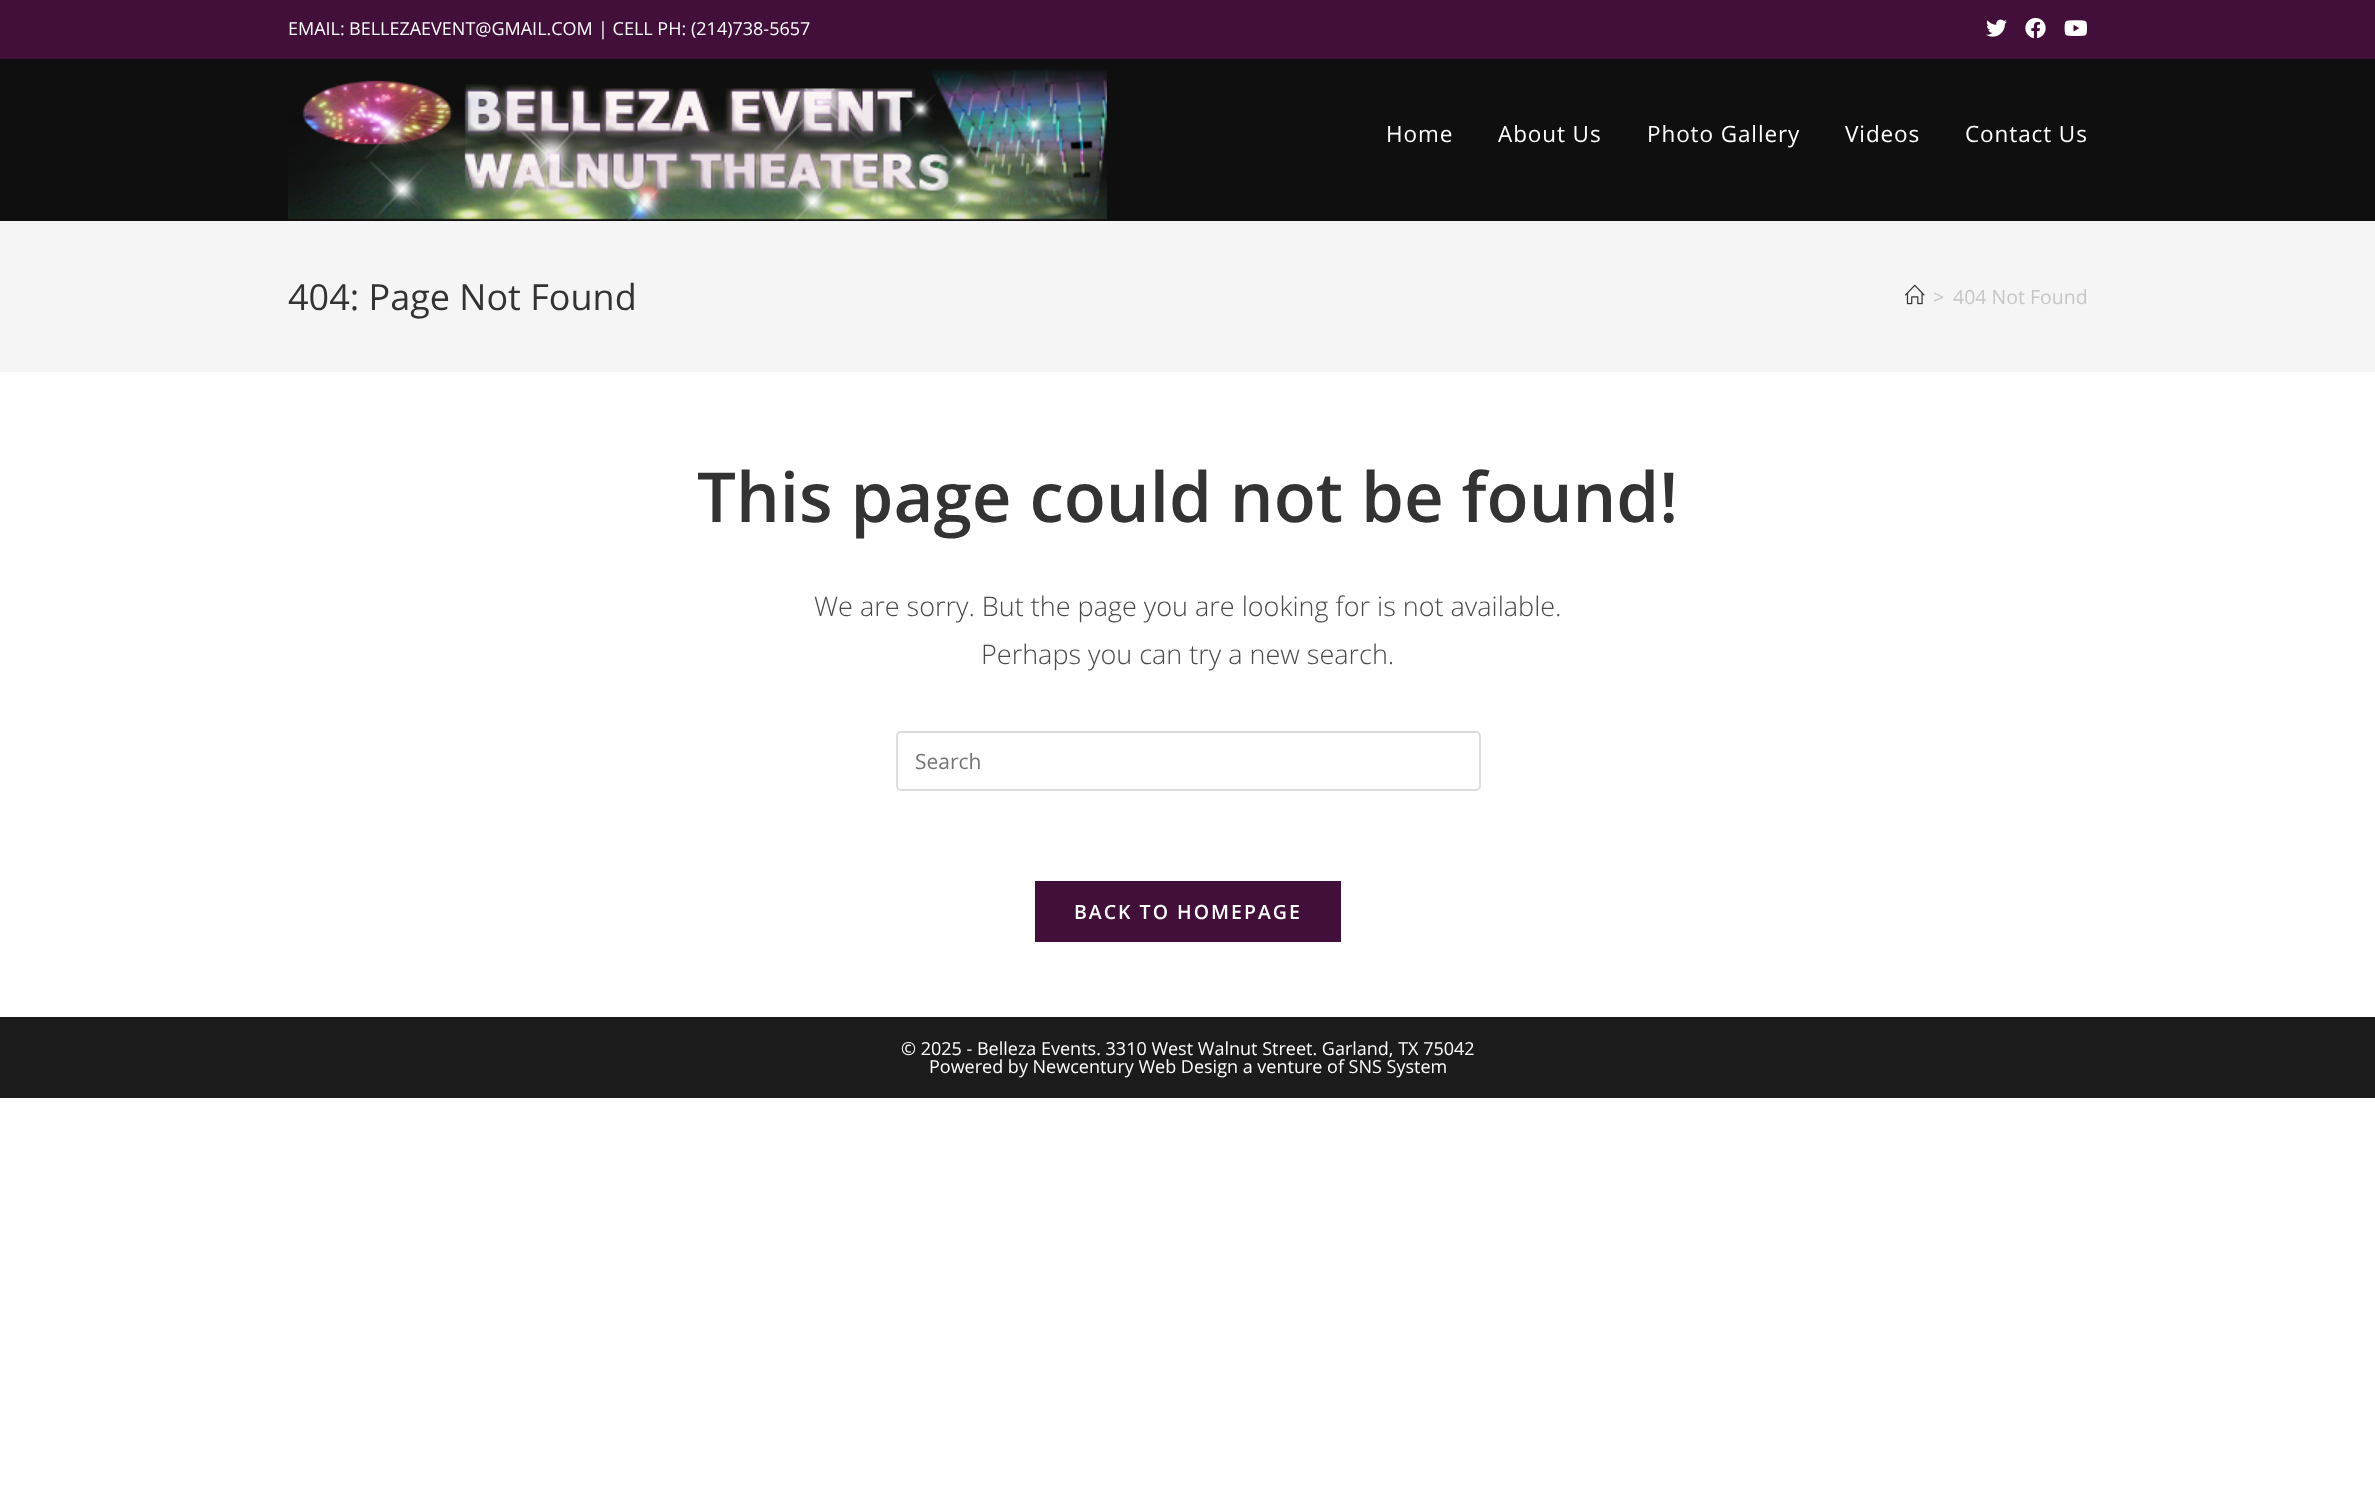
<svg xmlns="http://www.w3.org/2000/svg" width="2375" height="1493">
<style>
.a{font:18px Open Sans;fill:#fff}
.b{font:22.5px Open Sans;letter-spacing:0.9px;fill:#fff}
.c{font:36px Open Sans;fill:#333}
.d{font:19.5px Open Sans;fill:#c6c6c6}
.e{font:600 69px Open Sans;fill:#333}
.f{font:300 27px Open Sans;fill:#4a4a4a}
.g{font:21px Open Sans;fill:#757575}
.h{font:600 19.5px Open Sans;letter-spacing:2px;fill:#fff}
</style>
<rect width="100%" height="100%" fill="#fff"/>
<path fill="#420f3a" d="M0 0h2375v59H0z"/>
<image href="1.png" x="1986" y="19" width="21" height="18"/>
<image href="2.png" x="2025" y="17" width="21" height="22"/>
<image href="3.png" x="2064" y="20" width="23" height="16"/>
<path fill="#0f0f0f" d="M0 59h2375v162H0z"/>
<image href="4.png" x="288" y="69" width="819" height="152"/>
<path fill="#f5f5f5" d="M0 221h2375v151H0z"/>
<image href="5.png" x="1905" y="284" width="20" height="21"/>
<rect fill="none" stroke="#ddd" stroke-width="2" x="897" y="732" width="583" height="58" rx="4"/>
<path fill="#420f3a" d="M1035 881h306v61H1035z"/>
<path fill="#1b1b1b" d="M0 1017h2375v81H0z"/>
<text class="a" x="288" y="35">EMAIL:</text>
<text class="a" x="349" y="35">BELLEZAEVENT@GMAIL.COM</text>
<text class="a" x="598" y="35">| CELL PH:</text>
<text class="a" x="691" y="35">(214)738-5657</text>
<text class="b" x="1386" y="142">Home</text>
<text class="b" x="1498" y="142">About Us</text>
<text class="b" x="1647" y="142">Photo Gallery</text>
<text class="b" x="1845" y="142">Videos</text>
<text class="b" x="1965" y="142">Contact Us</text>
<text class="c" x="288" y="310">404: Page Not Found</text>
<text class="d" x="1933" y="304">&gt;</text>
<text class="d" x="1953" y="304">404 Not Found</text>
<text class="e" x="697" y="522">This page could not be found!</text>
<text class="f" x="814" y="616">We are sorry. But the page you are looking for is not available.</text>
<text class="f" x="981" y="664">Perhaps you can try a new search.</text>
<text class="g" x="915" y="769">Search</text>
<text class="h" x="1074" y="919">BACK TO HOMEPAGE</text>
<text class="a" x="901" y="1055">© 2025 - Belleza Events. 3310 West Walnut Street. Garland, TX 75042</text>
<text class="a" x="929" y="1073">Powered by Newcentury Web Design a venture of SNS System</text>
</svg>
